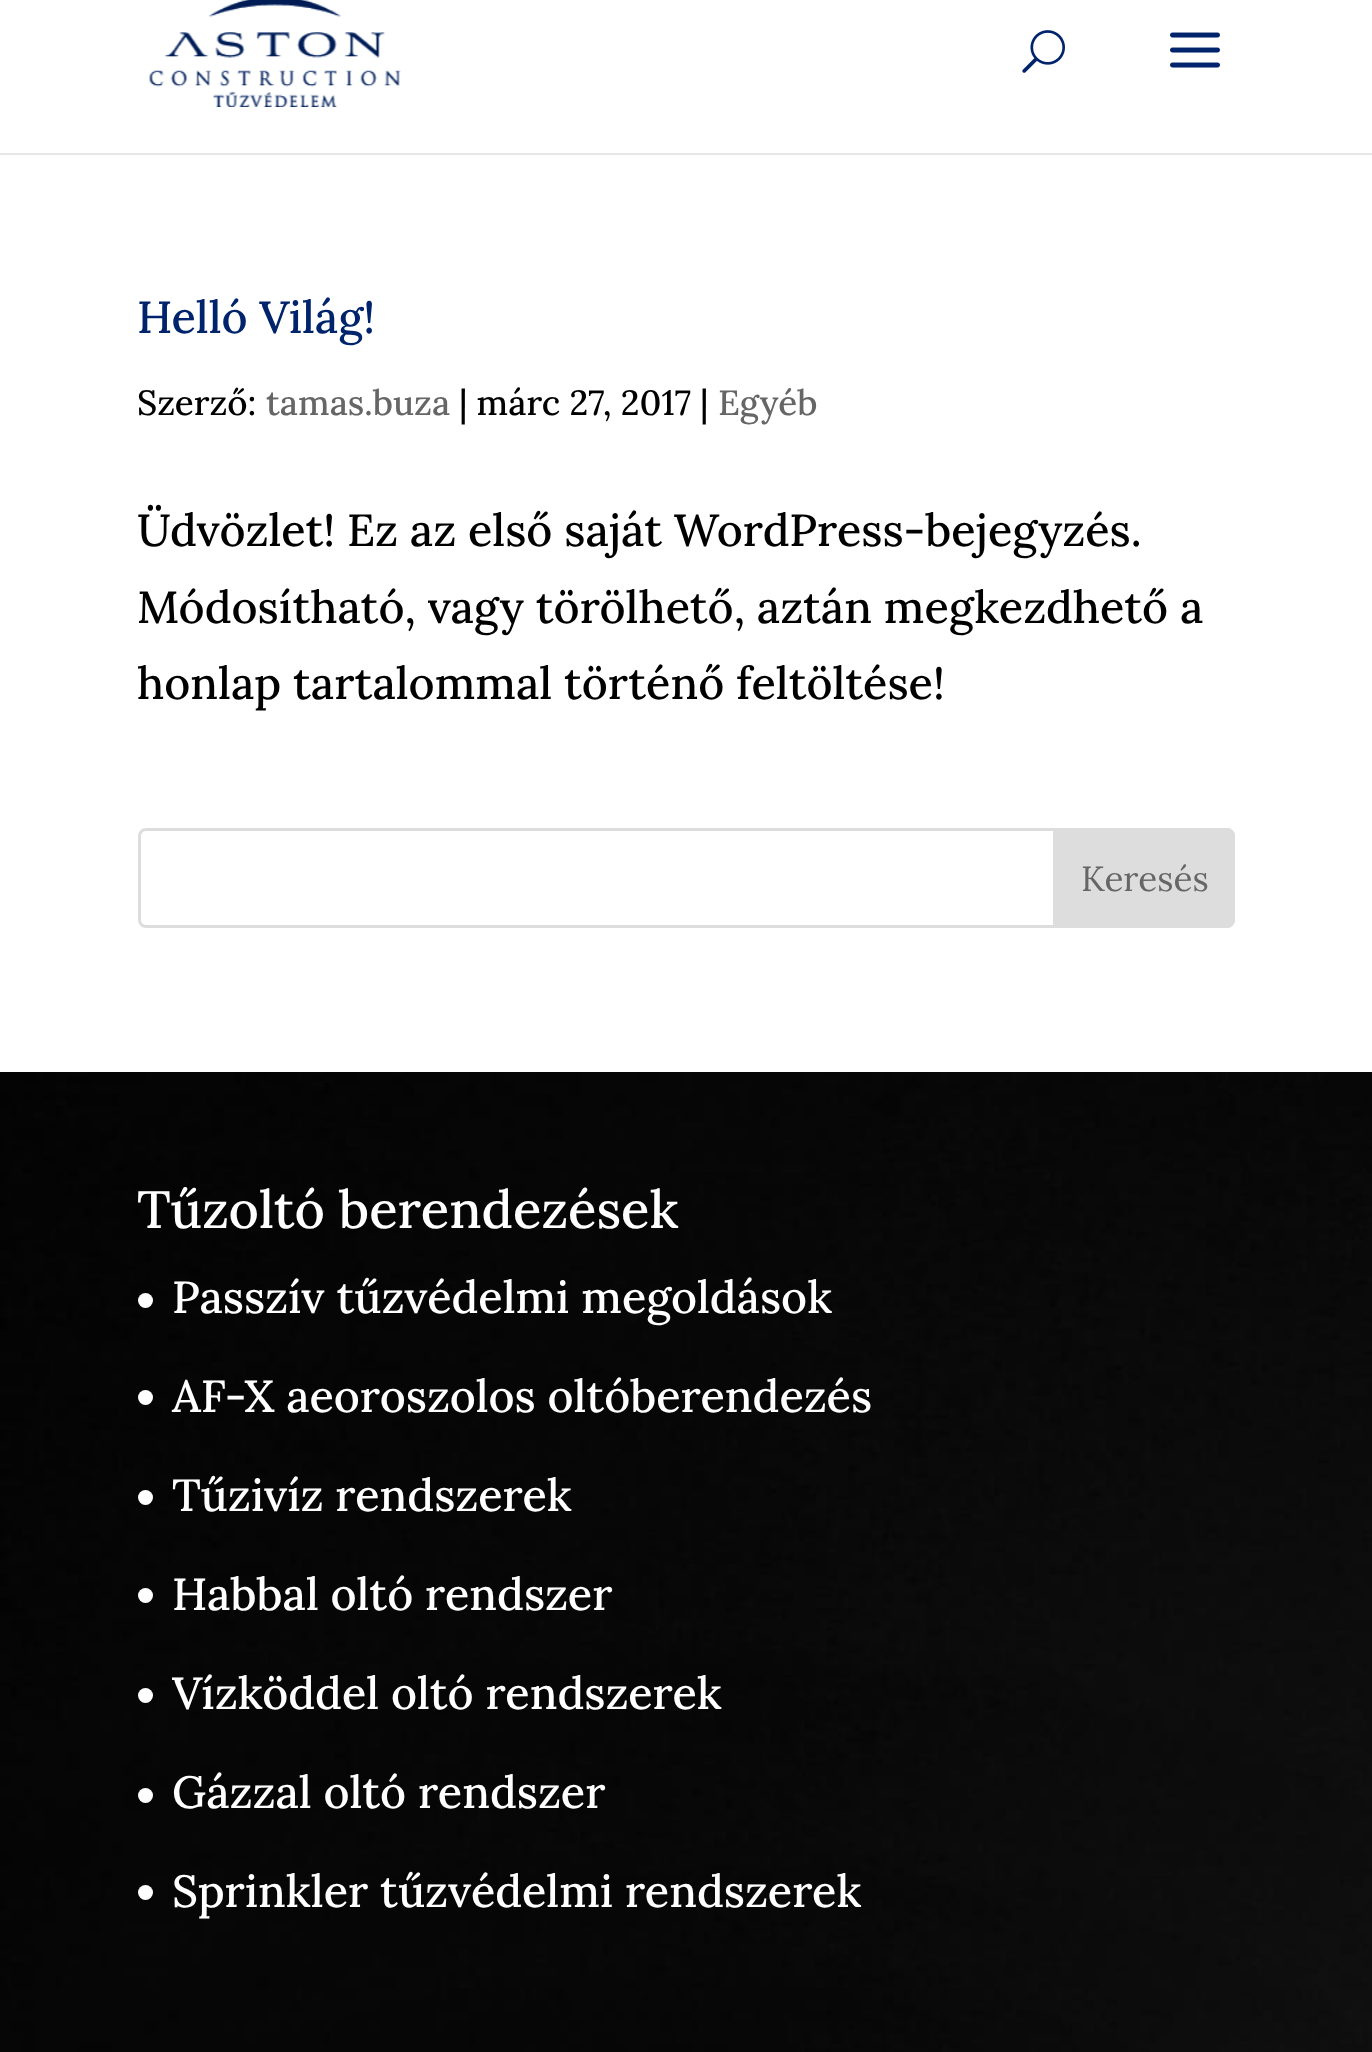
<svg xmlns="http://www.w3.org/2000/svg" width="1372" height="2052">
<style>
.a{font:500 45px Lora;fill:#00246c}
.b{font:500 35px Lora;fill:#000}
.c{font:500 35px Lora;fill:#666}
.d{font:500 45px Lora;fill:#000}
.e{font:35px Lora;fill:#666}
.f{font:500 52.5px Lora;fill:#fff}
.g{font:500 45px Lora;fill:#fff}
</style>
<rect width="100%" height="100%" fill="#fff"/>
<path fill="#e6e6e6" d="M0 152v3h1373v-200h-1v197z"/>
<path fill="#fff" d="M0 152h1372v1H0z"/>
<image href="1.png" x="149" y="0" width="252" height="107"/>
<image href="2.png" x="1022" y="30" width="43" height="43"/>
<image href="3.png" x="1170" y="32" width="50" height="36"/>
<rect fill="none" stroke="#ddd" stroke-width="3" x="139.5" y="829.5" width="1094" height="97" rx="6.5"/>
<path fill="#ddd" stroke="#ddd" stroke-width="3" d="M1054.5 829.5h172.5c3.5 0 6.5 3 6.5 6.5v84c0 3.5-3 6.5-6.5 6.5h-172.5z"/>
<image href="4.png" x="0" y="1072" width="1372" height="980"/>
<circle fill="#fff" cx="145.5" cy="1300.5" r="7.5"/>
<circle fill="#fff" cx="145.5" cy="1397.5" r="7.5"/>
<circle fill="#fff" cx="145.5" cy="1497.5" r="7.5"/>
<circle fill="#fff" cx="145.5" cy="1595.5" r="7.5"/>
<circle fill="#fff" cx="145.5" cy="1695.5" r="7.5"/>
<circle fill="#fff" cx="145.5" cy="1795.5" r="7.5"/>
<circle fill="#fff" cx="145.5" cy="1892.5" r="7.5"/>
<text class="a" x="137" y="333">Helló Világ!</text>
<text class="b" x="137" y="415">Szerző:</text>
<text class="c" x="266" y="415">tamas.buza</text>
<text class="b" x="459" y="415">| márc 27, 2017 |</text>
<text class="c" x="718" y="415">Egyéb</text>
<text class="d" x="137" y="546">Üdvözlet! Ez az első saját WordPress-bejegyzés.</text>
<text class="d" x="137" y="623">Módosítható, vagy törölhető, aztán megkezdhető a</text>
<text class="d" x="137" y="699">honlap tartalommal történő feltöltése!</text>
<text class="e" x="1081" y="891">Keresés</text>
<text class="f" x="137" y="1228">Tűzoltó berendezések</text>
<text class="g" x="172" y="1313">Passzív tűzvédelmi megoldások</text>
<text class="g" x="172" y="1412">AF-X aeoroszolos oltóberendezés</text>
<text class="g" x="172" y="1511">Tűzivíz rendszerek</text>
<text class="g" x="172" y="1610">Habbal oltó rendszer</text>
<text class="g" x="172" y="1709">Vízköddel oltó rendszerek</text>
<text class="g" x="172" y="1808">Gázzal oltó rendszer</text>
<text class="g" x="172" y="1907">Sprinkler tűzvédelmi rendszerek</text>
</svg>
